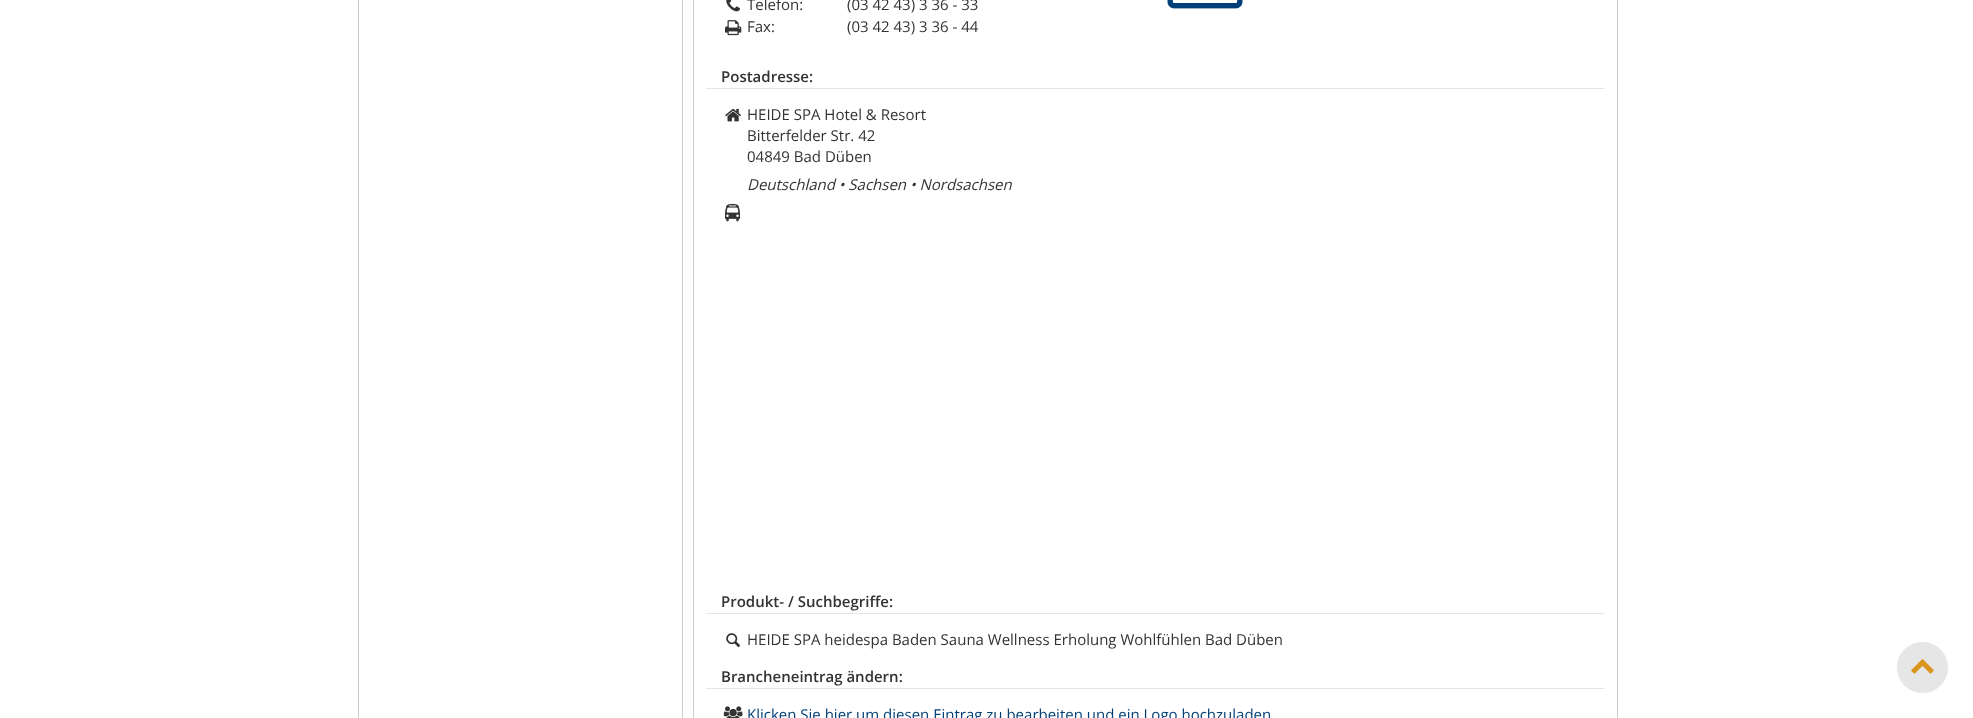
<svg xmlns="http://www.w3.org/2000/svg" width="1973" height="718">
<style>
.a{font:15px Open Sans;fill:#333}
.b{font:600 15px Open Sans;fill:#333}
.c{font:italic 15px Open Sans;fill:#333}
.d{font:15px Open Sans;fill:#004078}
</style>
<rect width="100%" height="100%" fill="#fff"/>
<path fill="none" stroke="#ccc" d="M358.5 -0.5h324v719H358.5z"/>
<path fill="none" stroke="#ccc" d="M693.5 -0.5h924v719H693.5z"/>
<image href="1.png" x="726" y="0" width="14" height="12"/>
<image href="2.png" x="725" y="20" width="17" height="16"/>
<image href="3.png" x="1167" y="0" width="76" height="9"/>
<path fill="#e5e5e5" d="M706 88h898v1H706z"/>
<image href="4.png" x="725" y="108" width="16" height="14"/>
<image href="5.png" x="725" y="203" width="15" height="19"/>
<path fill="#e5e5e5" d="M706 613h898v1H706z"/>
<image href="6.png" x="726" y="633" width="14" height="14"/>
<path fill="#e5e5e5" d="M706 688h898v1H706z"/>
<image href="7.png" x="723" y="706" width="20" height="12"/>
<circle fill="#e6e6e6" stroke="#fff" cx="1922.5" cy="667.5" r="26"/>
<image href="8.png" x="1911" y="659" width="23" height="15"/>
<text class="a" x="747" y="10">Telefon:</text>
<text class="a" x="847" y="10">(03 42 43) 3 36 - 33</text>
<text class="a" x="747" y="32">Fax:</text>
<text class="a" x="847" y="32">(03 42 43) 3 36 - 44</text>
<text class="b" x="721" y="82">Postadresse:</text>
<text class="a" x="747" y="120">HEIDE SPA Hotel &amp; Resort</text>
<text class="a" x="747" y="141">Bitterfelder Str. 42</text>
<text class="a" x="747" y="162">04849 Bad Düben</text>
<text class="c" x="747" y="190">Deutschland • Sachsen • Nordsachsen</text>
<text class="b" x="721" y="607">Produkt- / Suchbegriffe:</text>
<text class="a" x="747" y="645">HEIDE SPA heidespa Baden Sauna Wellness Erholung Wohlfühlen Bad Düben</text>
<text class="b" x="721" y="682">Brancheneintrag ändern:</text>
<text class="d" x="747" y="720">Klicken Sie hier um diesen Eintrag zu bearbeiten und ein Logo hochzuladen</text>
</svg>
